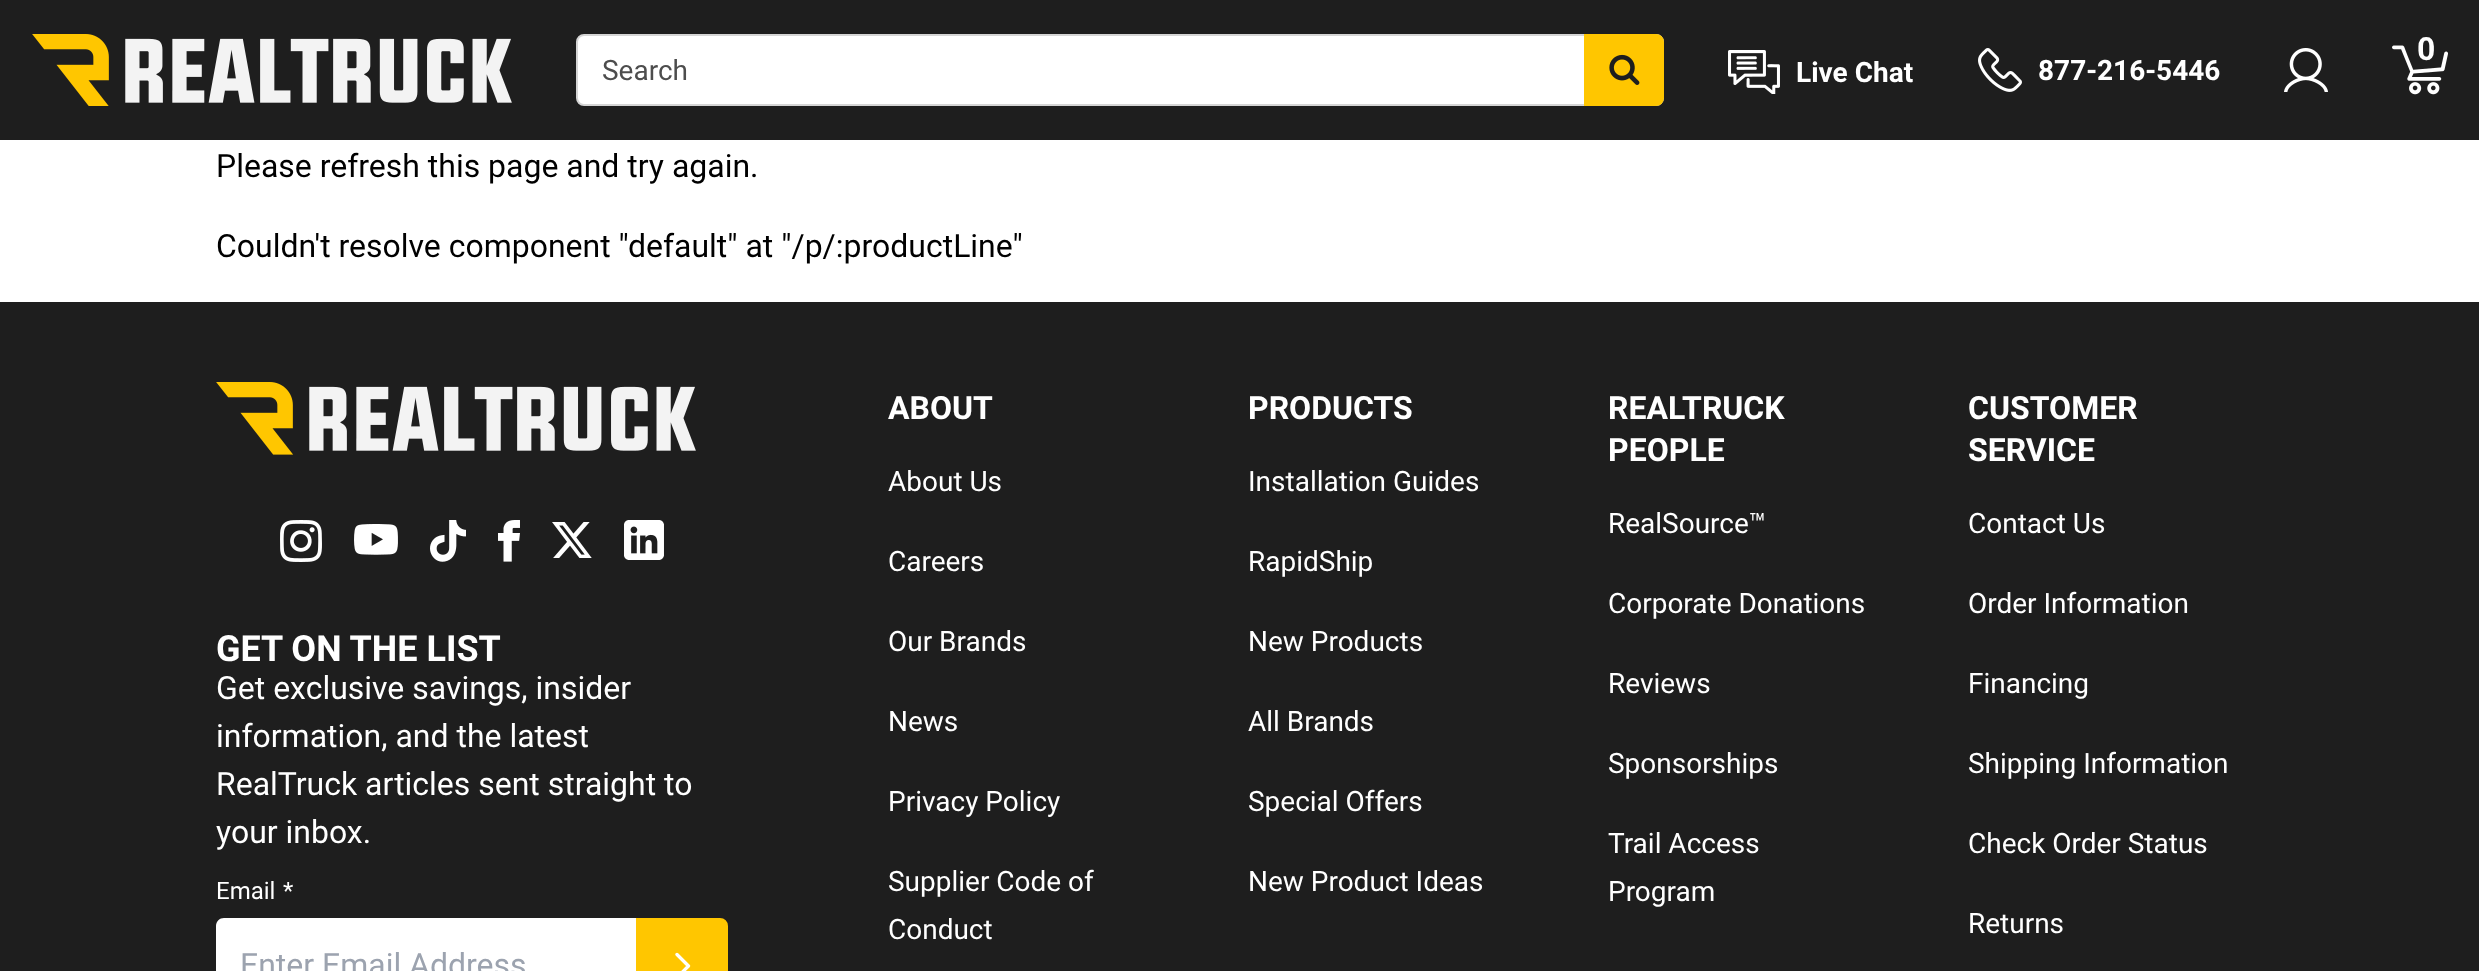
<svg xmlns="http://www.w3.org/2000/svg" width="2479" height="971">
<style>
.a{font:28px Roboto;fill:#4d4d4d}
.b{font:bold 28px Roboto;fill:#fff}
.c{font:bold 32px Roboto;fill:#fff}
.d{font:32px Roboto;fill:#000}
.e{font:bold 36px Roboto;fill:#fff}
.f{font:32px Roboto;fill:#fff}
.g{font:24px Roboto;fill:#fff}
.h{font:32px Roboto;fill:#9ca3af}
.i{font:28px Roboto;fill:#fff}
</style>
<rect width="100%" height="100%" fill="#fff"/>
<path fill="#1e1e1e" d="M0 0h2479v140H0z"/>
<image href="1.png" x="32" y="34" width="480" height="72"/>
<rect fill="#fff" stroke="#d5d5d5" stroke-width="2" x="577" y="35" width="1086" height="70" rx="7"/>
<path fill="#ffc600" stroke="#ffc600" stroke-width="2" d="M1585 35h71c4 0 7 3 7 7v56c0 4-3 7-7 7h-71z"/>
<image href="2.png" x="1609" y="54" width="31" height="31"/>
<image href="3.png" x="1728" y="50" width="52" height="44"/>
<image href="4.png" x="1978" y="48" width="44" height="44"/>
<image href="5.png" x="2284" y="48" width="44" height="44"/>
<image href="6.png" x="2392" y="45" width="56" height="50"/>
<path fill="#1e1e1e" d="M0 302h2479v669H0z"/>
<image href="7.png" x="216" y="382" width="480" height="73"/>
<image href="8.png" x="280" y="520" width="42" height="42"/>
<image href="9.png" x="354" y="524" width="44" height="31"/>
<image href="10.png" x="430" y="520" width="36" height="42"/>
<image href="11.png" x="498" y="520" width="22" height="42"/>
<image href="12.png" x="552" y="522" width="40" height="36"/>
<image href="13.png" x="624" y="520" width="40" height="40"/>
<path fill="#fff" d="M224 918h412v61h-412c-4.5 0-8-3.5-8-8v-45c0-4.5 3.5-8 8-8z"/>
<path fill="#ffc600" stroke="#ffc600" stroke-width="2" d="M637 919h83c4 0 7 3 7 7v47c0 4-3 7-7 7h-83z"/>
<path fill="none" stroke="#fff" stroke-width="3.3" stroke-linecap="round" stroke-linejoin="round" d="M677 954.5l11.5 11.5l-11.5 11.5"/>
<text class="a" x="602" y="80">Search</text>
<text class="b" x="1796" y="82">Live Chat</text>
<text class="b" x="2038" y="80">877-216-5446</text>
<text class="c" x="2417" y="60">0</text>
<text class="d" x="216" y="177">Please refresh this page and try again.</text>
<text class="d" x="216" y="257">Couldn't resolve component "default" at "/p/:productLine"</text>
<text class="e" x="216" y="661">GET ON THE LIST</text>
<text class="f" x="216" y="699">Get exclusive savings, insider</text>
<text class="f" x="216" y="747">information, and the latest</text>
<text class="f" x="216" y="795">RealTruck articles sent straight to</text>
<text class="f" x="216" y="843">your inbox.</text>
<text class="g" x="216" y="899">Email</text>
<text class="g" x="283" y="899">*</text>
<text class="h" x="240" y="976">Enter Email Address</text>
<text class="c" x="888" y="419">ABOUT</text>
<text class="i" x="888" y="491">About Us</text>
<text class="i" x="888" y="571">Careers</text>
<text class="i" x="888" y="651">Our Brands</text>
<text class="i" x="888" y="731">News</text>
<text class="i" x="888" y="811">Privacy Policy</text>
<text class="i" x="888" y="891">Supplier Code of</text>
<text class="i" x="888" y="939">Conduct</text>
<text class="c" x="1248" y="419">PRODUCTS</text>
<text class="i" x="1248" y="491">Installation Guides</text>
<text class="i" x="1248" y="571">RapidShip</text>
<text class="i" x="1248" y="651">New Products</text>
<text class="i" x="1248" y="731">All Brands</text>
<text class="i" x="1248" y="811">Special Offers</text>
<text class="i" x="1248" y="891">New Product Ideas</text>
<text class="c" x="1608" y="419">REALTRUCK</text>
<text class="c" x="1608" y="461">PEOPLE</text>
<text class="i" x="1608" y="533">RealSource™</text>
<text class="i" x="1608" y="613">Corporate Donations</text>
<text class="i" x="1608" y="693">Reviews</text>
<text class="i" x="1608" y="773">Sponsorships</text>
<text class="i" x="1608" y="853">Trail Access</text>
<text class="i" x="1608" y="901">Program</text>
<text class="c" x="1968" y="419">CUSTOMER</text>
<text class="c" x="1968" y="461">SERVICE</text>
<text class="i" x="1968" y="533">Contact Us</text>
<text class="i" x="1968" y="613">Order Information</text>
<text class="i" x="1968" y="693">Financing</text>
<text class="i" x="1968" y="773">Shipping Information</text>
<text class="i" x="1968" y="853">Check Order Status</text>
<text class="i" x="1968" y="933">Returns</text>
</svg>
